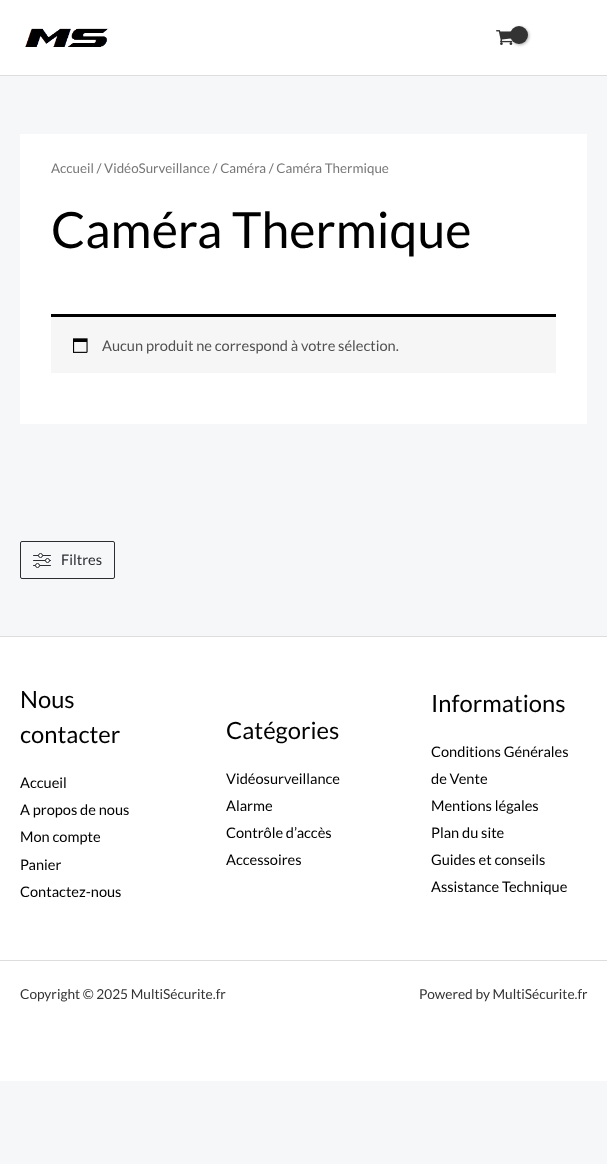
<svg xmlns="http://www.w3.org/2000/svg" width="607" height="1164">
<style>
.a{font:13.4px Lato;fill:#777}
.b{font:50px Lato;fill:#000}
.c{font:14.6px Lato;fill:#515151}
.d{font:14.6px Lato;fill:#2c2d33}
.e{font:23.75px Lato;fill:#000}
.f{font:14.6px Lato;fill:#000}
.g{font:13.7px Lato;fill:#333}
</style>
<rect width="100%" height="100%" fill="#f5f7f9"/>
<path fill="#fff" d="M0 0h607v75H0z"/>
<path fill="#ddd" d="M0 75h607v1H0z"/>
<image href="1.png" x="25" y="28" width="84" height="19"/>
<image href="2.png" x="496" y="30" width="17" height="15"/>
<rect fill="#0000004d" filter="blur(1.5px)" x="511" y="27" width="18" height="18" rx="9"/>
<circle fill="#333" cx="519" cy="35" r="9"/>
<path fill="#fff" d="M20 134h567v290H20z"/>
<path fill="#f7f6f7" d="M51 317h505v56H51z"/>
<path fill="#000" d="M51 314h505v3H51z"/>
<image href="3.png" x="73" y="338" width="15" height="15"/>
<rect fill="none" stroke="#2c2d33" x="20.5" y="541.5" width="94" height="37" rx="1.5"/>
<rect fill="#2c2d33" x="33" y="555" width="18" height="1" rx="0.5"/>
<circle fill="#fff" stroke="#2c2d33" cx="40.5" cy="555.5" r="2"/>
<rect fill="#2c2d33" x="33" y="560" width="18" height="1" rx="0.5"/>
<circle fill="#fff" stroke="#2c2d33" cx="47.5" cy="560.5" r="2"/>
<rect fill="#2c2d33" x="33" y="565" width="18" height="1" rx="0.5"/>
<circle fill="#fff" stroke="#2c2d33" cx="37.5" cy="565.5" r="2"/>
<path fill="#fff" d="M0 637h607v444H0z"/>
<path fill="#ddd" d="M0 636h607v1H0z"/>
<path fill="#ddd" d="M0 960h607v1H0z"/>
<text class="a" x="51" y="173">Accueil / VidéoSurveillance / Caméra / Caméra Thermique</text>
<text class="b" x="51" y="248">Caméra Thermique</text>
<text class="c" x="102" y="351">Aucun produit ne correspond à votre sélection.</text>
<text class="d" x="61" y="565">Filtres</text>
<text class="e" x="20" y="708">Nous</text>
<text class="e" x="20" y="743">contacter</text>
<text class="f" x="20" y="788">Accueil</text>
<text class="f" x="20" y="815">A propos de nous</text>
<text class="f" x="20" y="842">Mon compte</text>
<text class="f" x="20" y="870">Panier</text>
<text class="f" x="20" y="897">Contactez-nous</text>
<text class="e" x="226" y="739">Catégories</text>
<text class="f" x="226" y="784">Vidéosurveillance</text>
<text class="f" x="226" y="811">Alarme</text>
<text class="f" x="226" y="838">Contrôle d’accès</text>
<text class="f" x="226" y="865">Accessoires</text>
<text class="e" x="431" y="712">Informations</text>
<text class="f" x="431" y="757">Conditions Générales</text>
<text class="f" x="431" y="784">de Vente</text>
<text class="f" x="431" y="811">Mentions légales</text>
<text class="f" x="431" y="838">Plan du site</text>
<text class="f" x="431" y="865">Guides et conseils</text>
<text class="f" x="431" y="892">Assistance Technique</text>
<text class="g" x="20" y="999">Copyright © 2025 MultiSécurite.fr</text>
<text class="g" x="419" y="999">Powered by MultiSécurite.fr</text>
</svg>
